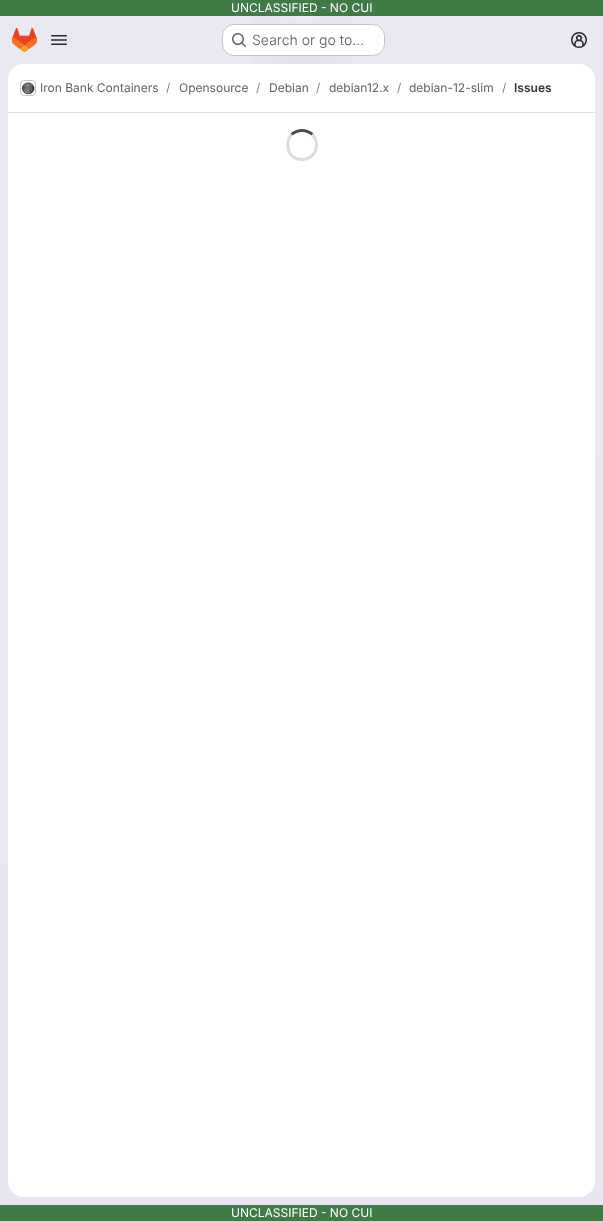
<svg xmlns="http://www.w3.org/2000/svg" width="603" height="1221">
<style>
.a{font:12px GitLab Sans;fill:#fff}
.b{font:300 14px GitLab Sans;fill:#626168}
.c{font:12px GitLab Sans;fill:#626168}
.d{font:12px GitLab Sans;fill:#89888d}
.e{font:600 12px GitLab Sans;fill:#3a383f}
</style>
<defs>
<linearGradient id="g1" gradientUnits="userSpaceOnUse" x1="415" y1="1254" x2="188" y2="-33"><stop offset="0" stop-color="#e8e6f0"/><stop offset="0.7" stop-color="#eae9f2"/></linearGradient>
<radialGradient id="g2" gradientUnits="userSpaceOnUse" cx="0" cy="0" r="1" gradientTransform="matrix(302 0 0 1221 302 0)"><stop offset="0" stop-color="#e4e2ed"/><stop offset="0.23" stop-color="#e4e2ed" stop-opacity="0"/></radialGradient>
<radialGradient id="g3" gradientUnits="userSpaceOnUse" cx="0" cy="0" r="1" gradientTransform="matrix(302 0 0 1221 302 0)"><stop offset="0" stop-color="#e4e2ec"/><stop offset="0.17" stop-color="#e4e2ec" stop-opacity="0"/></radialGradient>
<radialGradient id="g4" gradientUnits="userSpaceOnUse" cx="302" cy="0" r="1258"><stop offset="0" stop-color="#fff" stop-opacity="0.6"/><stop offset="0.03" stop-color="#fff" stop-opacity="0"/></radialGradient>
</defs>
<rect width="100%" height="100%" fill="#fff"/>
<path fill="url(#g1)" d="M0 16h603v1189H0z"/>
<path fill="url(#g2)" d="M252 16h100v48H252z"/>
<path fill="url(#g3)" d="M278 16h48v47H278z"/>
<path fill="url(#g4)" d="M270 16h64v8H270z"/>
<path fill="#3f7a47" d="M0 0h603v16H0z"/>
<image href="1.png" x="12" y="28" width="25" height="24"/>
<image href="2.png" x="51" y="35" width="16" height="10"/>
<rect fill="#fff" x="222" y="24" width="163" height="32" rx="12"/>
<rect fill="none" stroke="#0505063d" x="222.5" y="24.5" width="162" height="31" rx="11.5"/>
<image href="3.png" x="232" y="33" width="14" height="14"/>
<image href="4.png" x="571" y="32" width="16" height="16"/>
<rect fill="#fff" x="8" y="64" width="587" height="1133" rx="16"/>
<path fill="#fff" d="M24 64h555c9 0 16 7 16 16v33h-587v-33c0-9 7-16 16-16z"/>
<path fill="#e1dfec" d="M8 112h587v1H8z"/>
<rect fill="none" stroke="#dcdcde" x="20.5" y="80.5" width="15" height="15" rx="3.5"/>
<image href="5.png" x="21" y="82" width="14" height="13"/>
<rect fill="none" stroke="#05050614" x="20.5" y="80.5" width="15" height="15" rx="3.5"/>
<path fill="none" stroke="#4c4b51" stroke-width="3" d="M291.5 134.5c6-5.5 15-5.5 21 0"/>
<path fill="none" stroke="#dcdcde" stroke-width="3" d="M312.5 134.5c2.5 3 4 6.5 4 10.5c0 17.5-25.5 20-28.5 3c-1-5 .5-10 3.5-13.5"/>
<path fill="#3f7a47" d="M0 1205h603v16H0z"/>
<text class="a" x="231" y="12">UNCLASSIFIED - NO CUI</text>
<text class="b" x="252" y="45">Search or go to…</text>
<text class="c" x="40" y="92">Iron Bank Containers</text>
<text class="d" x="166" y="92">/</text>
<text class="c" x="179" y="92">Opensource</text>
<text class="d" x="256" y="92">/</text>
<text class="c" x="269" y="92">Debian</text>
<text class="d" x="316" y="92">/</text>
<text class="c" x="329" y="92">debian12.x</text>
<text class="d" x="397" y="92">/</text>
<text class="c" x="409" y="92">debian-12-slim</text>
<text class="d" x="502" y="92">/</text>
<text class="e" x="514" y="92">Issues</text>
<text class="a" x="231" y="1217">UNCLASSIFIED - NO CUI</text>
</svg>
